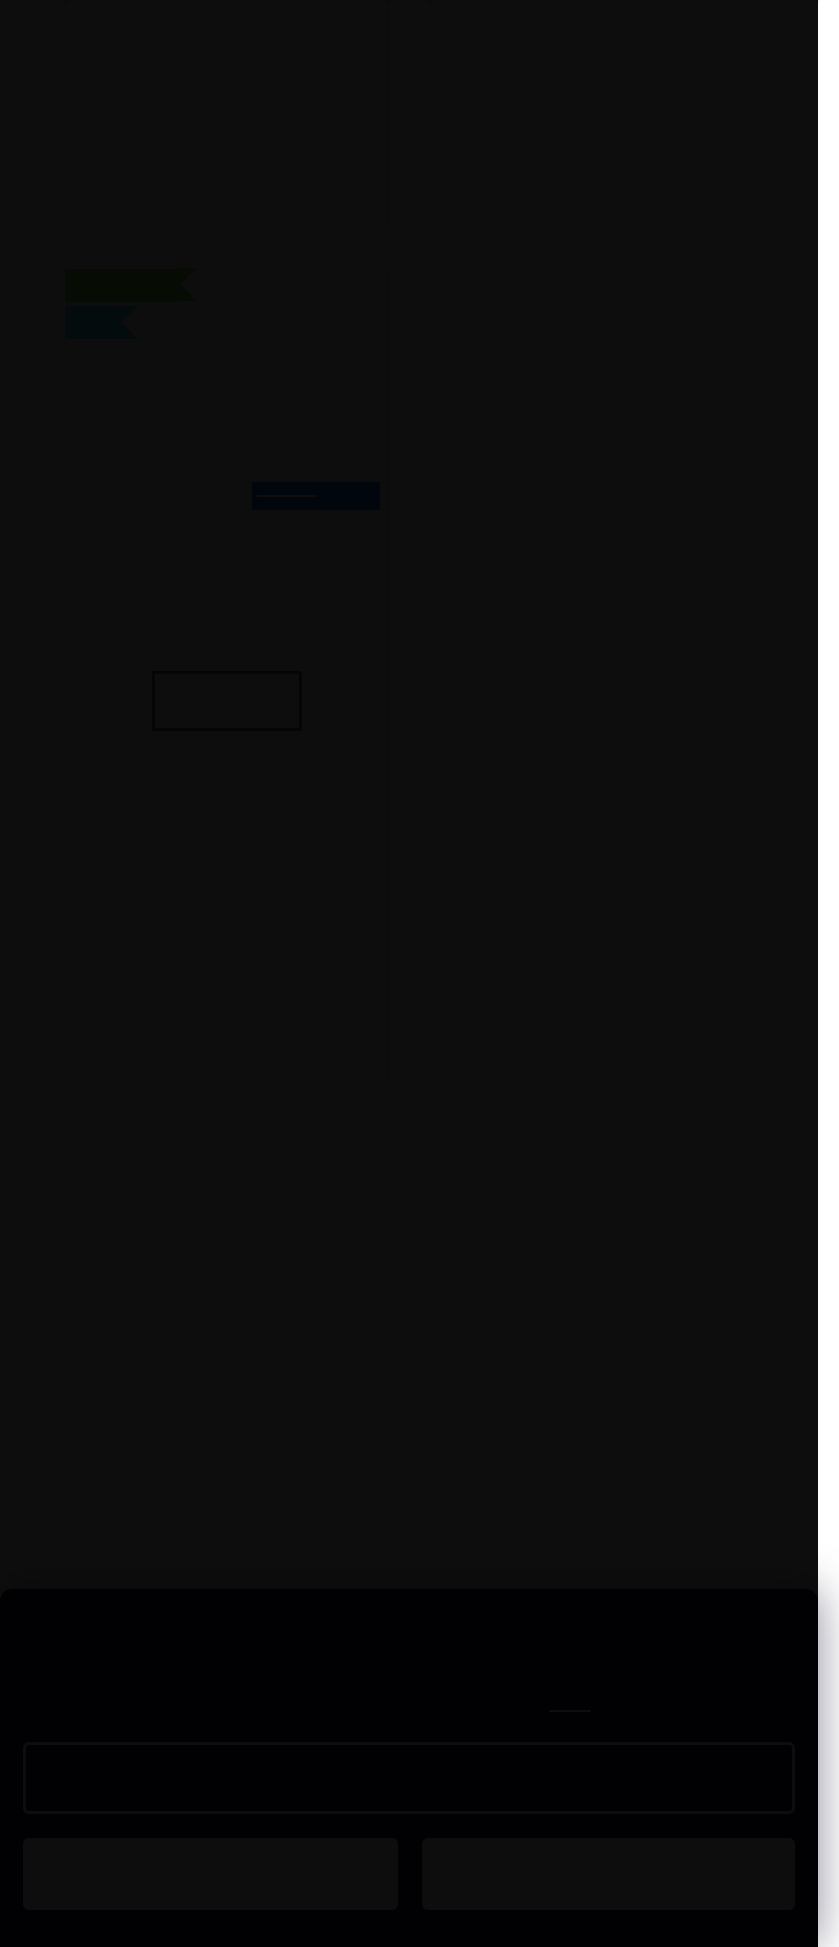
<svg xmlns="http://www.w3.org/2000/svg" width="839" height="1947">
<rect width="100%" height="100%" fill="#fff"/>
<path fill="none" stroke="#e6e6e6" stroke-width="2" d="M66 -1h322v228H66z"/>
<path fill="none" stroke="#e6e6e6" stroke-width="2" d="M430 -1h322v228H430z"/>
<path fill="none" stroke="#e6e6e6" stroke-width="2" d="M66 270h322v811H66z"/>
<path fill="#7ad046" d="M65 269h114v33H65z"/>
<path fill="#7ad046" d="M161 283h18l18 18h-18z"/>
<path fill="#7ad046" d="M179 268h18l-18 18h-18z"/>
<path fill="#59d6e4" d="M65 306h55v33H65z"/>
<path fill="#59d6e4" d="M102 321h18l18 18h-18z"/>
<path fill="#59d6e4" d="M120 306h18l-18 18h-18z"/>
<path fill="#1d7af8" d="M252 482h128v28H252z"/>
<path fill="#fff" d="M257 495h61v2H257z"/>
<path fill="none" stroke="#546b79" stroke-width="3" d="M153.5 672.5h147v57H153.5z"/>
<path fill="#00000029" filter="blur(1.5px)" d="M0 -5h818v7H0z"/>
<rect fill="#1b193980" filter="blur(22.5px)" y="1589" width="818" height="358" rx="12"/>
<path fill="#1a1937" d="M12 1589h794c6.5 0 12 5.5 12 12v346h-818v-346c0-6.5 5.5-12 12-12z"/>
<path fill="#f8fafb" d="M549 1710h42v2H549z"/>
<rect fill="none" stroke="#f8fafb" stroke-width="3" x="24.5" y="1743.5" width="769" height="69" rx="4.5"/>
<rect fill="#f8fafb" x="23" y="1838" width="375" height="72" rx="6"/>
<rect fill="#f8fafb" x="422" y="1838" width="373" height="72" rx="6"/>
<path fill="#000000f2" d="M0 0h818v1947H0z"/>
</svg>
